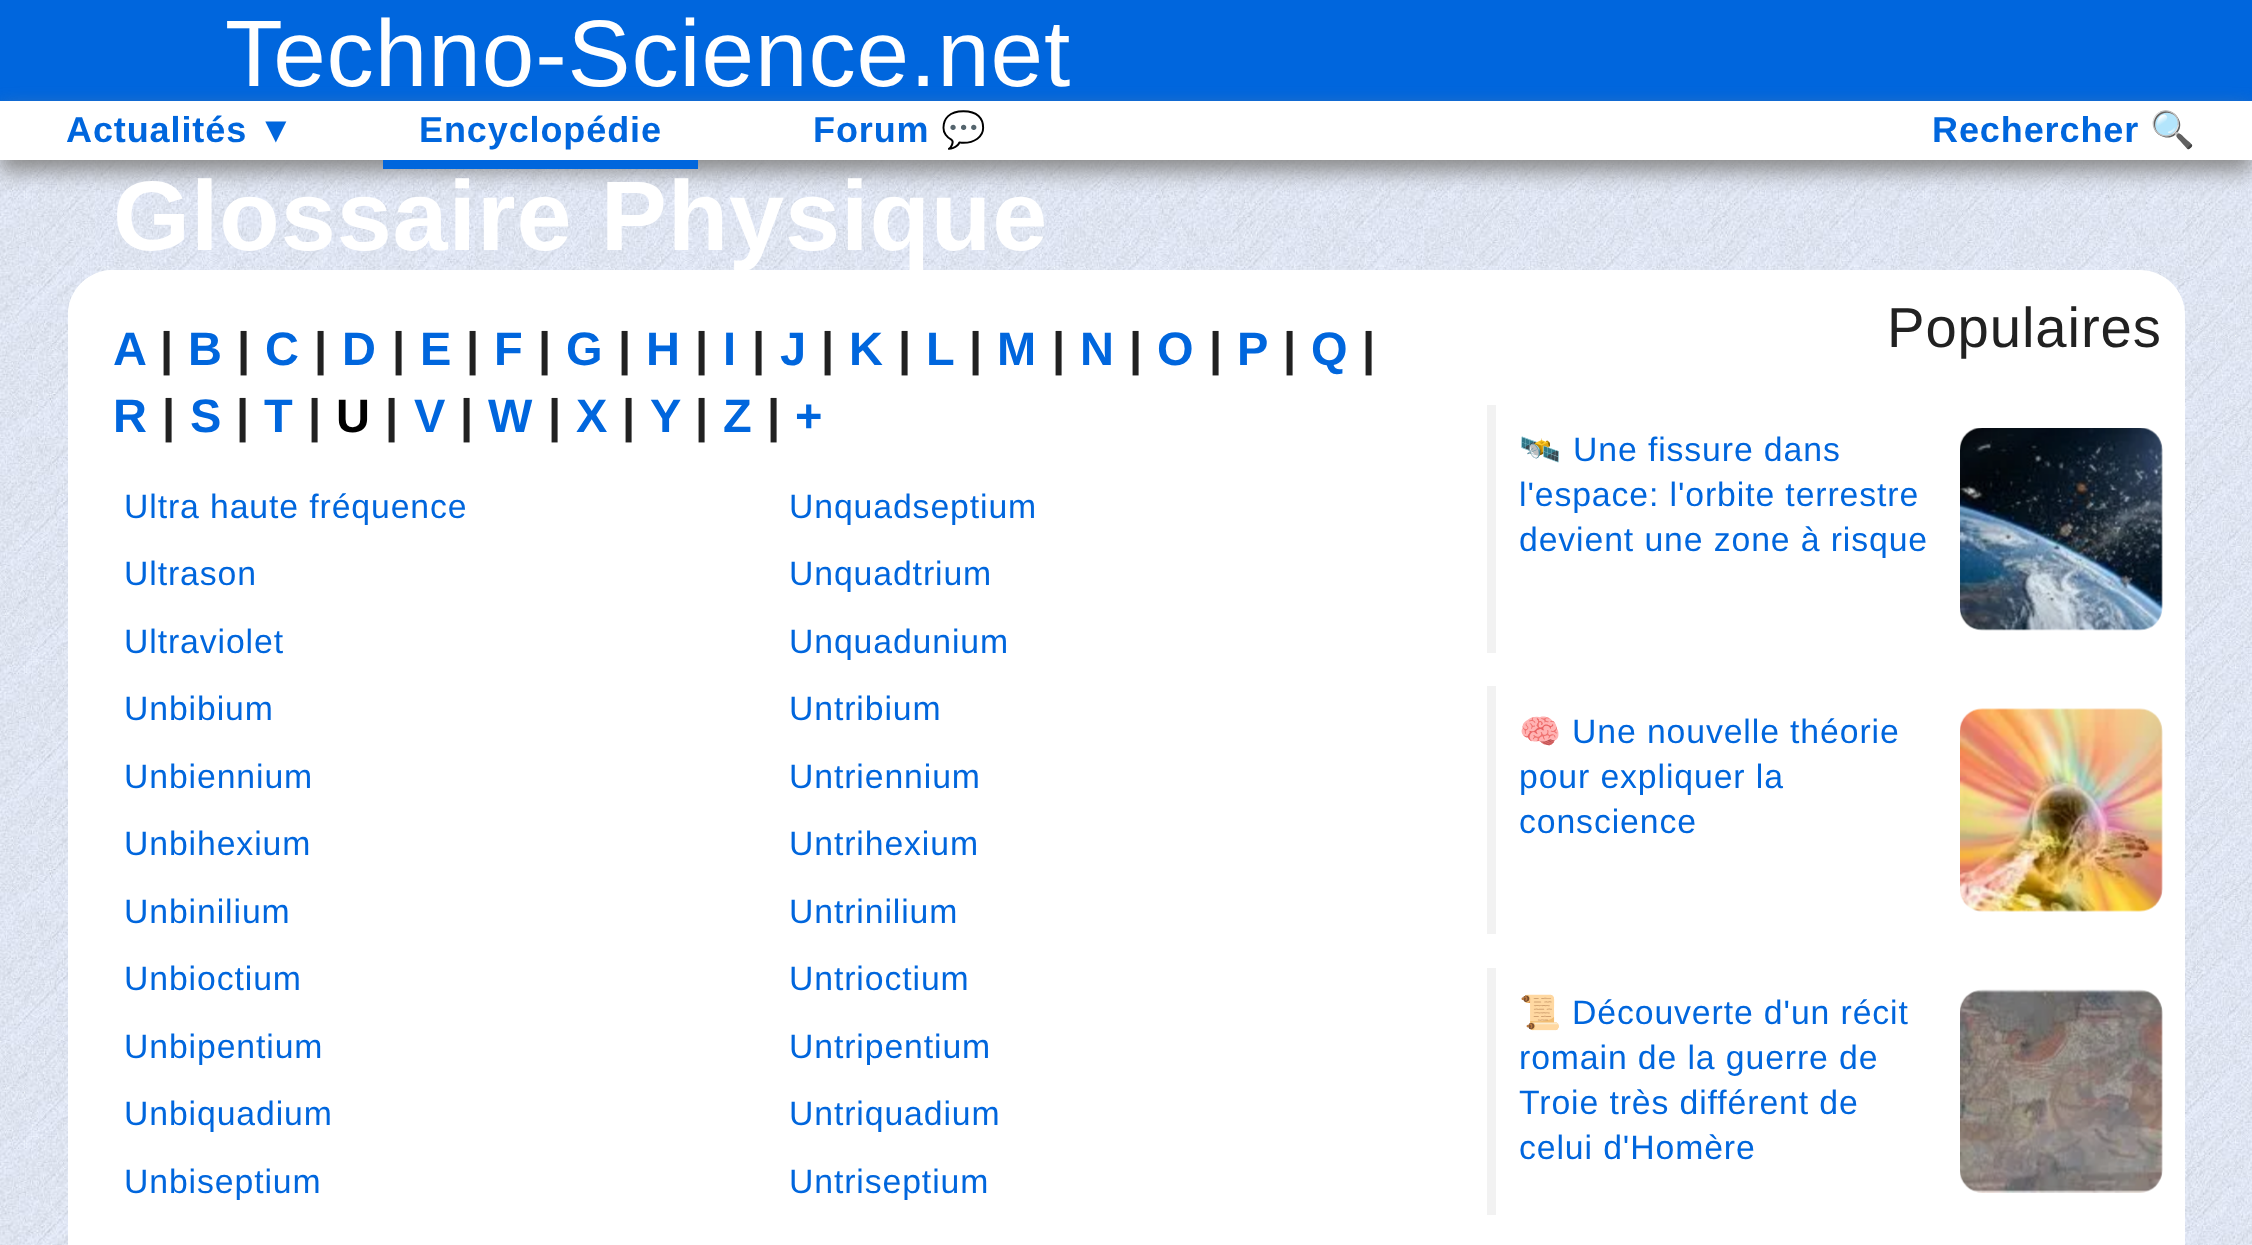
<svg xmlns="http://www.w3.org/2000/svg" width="2252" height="1245">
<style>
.a{font:94.5px Liberation Sans;letter-spacing:0.9px;fill:#fff}
.b{font:bold 36px Liberation Sans;letter-spacing:0.9px;fill:#06d}
.c{font:bold 36px Noto Color Emoji;letter-spacing:0.9px;fill:#06d}
.d{font:bold 99px Liberation Sans;letter-spacing:0.9px;fill:#fff}
.e{font:bold 47px Liberation Sans;letter-spacing:0.9px;fill:#06d}
.f{font:bold 47px Liberation Sans;letter-spacing:0.9px;fill:#212121}
.g{font:bold 47px Liberation Sans;letter-spacing:0.9px;fill:#000}
.h{font:33.75px Liberation Sans;letter-spacing:0.9px;fill:#06d}
.i{font:56.25px Liberation Sans;letter-spacing:0.9px;fill:#212121}
.j{font:33.75px Noto Color Emoji;letter-spacing:0.9px;fill:#06d}
</style>
<defs>
<clipPath id="clip1"><path d="M1519 428h418v202H1519z"/></clipPath>
<clipPath id="clip2"><path d="M1519 709h418v202H1519z"/></clipPath>
<clipPath id="clip3"><path d="M1519 990h418v203H1519z"/></clipPath>
</defs>
<rect width="100%" height="100%" fill="#fff"/>
<image href="1.png" x="0" y="160" width="2252" height="1085"/>
<path fill="#06d" d="M0 0h2252v101H0z"/>
<path fill="#888" filter="blur(11px)" d="M0 113h2252v58H0z"/>
<path fill="#fff" d="M0 101h2252v59H0z"/>
<path fill="#06d" d="M383 160h315v9H383z"/>
<rect fill="#fff" x="68" y="270" width="2117" height="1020" rx="45"/>
<rect fill="#fff" x="68" y="270" width="1397" height="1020" rx="45"/>
<path fill="#f2f2f2" d="M1487 405h9v248H1487z"/>
<image href="2.png" x="1960" y="428" width="203" height="203"/>
<path fill="#f2f2f2" d="M1487 686h9v248H1487z"/>
<image href="3.png" x="1960" y="708" width="203" height="204"/>
<path fill="#f2f2f2" d="M1487 968h9v247H1487z"/>
<image href="4.png" x="1960" y="989" width="203" height="204"/>
<text class="a" x="225" y="86">Techno-Science.net</text>
<text class="b" x="66" y="142">Actualités ▼</text>
<text class="b" x="419" y="142">Encyclopédie</text>
<text class="b" x="813" y="142">Forum</text>
<text class="c" x="941" y="142">💬</text>
<text class="b" x="1932" y="142">Rechercher</text>
<text class="c" x="2150" y="142">🔍</text>
<text class="d" x="113" y="250">Glossaire Physique</text>
<text class="e" x="113" y="365">A</text>
<text class="f" x="160" y="365">|</text>
<text class="e" x="188" y="365">B</text>
<text class="f" x="237" y="365">|</text>
<text class="e" x="265" y="365">C</text>
<text class="f" x="314" y="365">|</text>
<text class="e" x="342" y="365">D</text>
<text class="f" x="392" y="365">|</text>
<text class="e" x="420" y="365">E</text>
<text class="f" x="466" y="365">|</text>
<text class="e" x="494" y="365">F</text>
<text class="f" x="538" y="365">|</text>
<text class="e" x="566" y="365">G</text>
<text class="f" x="618" y="365">|</text>
<text class="e" x="646" y="365">H</text>
<text class="f" x="695" y="365">|</text>
<text class="e" x="723" y="365">I</text>
<text class="f" x="752" y="365">|</text>
<text class="e" x="780" y="365">J</text>
<text class="f" x="821" y="365">|</text>
<text class="e" x="849" y="365">K</text>
<text class="f" x="898" y="365">|</text>
<text class="e" x="926" y="365">L</text>
<text class="f" x="969" y="365">|</text>
<text class="e" x="997" y="365">M</text>
<text class="f" x="1052" y="365">|</text>
<text class="e" x="1080" y="365">N</text>
<text class="f" x="1129" y="365">|</text>
<text class="e" x="1157" y="365">O</text>
<text class="f" x="1209" y="365">|</text>
<text class="e" x="1237" y="365">P</text>
<text class="f" x="1283" y="365">|</text>
<text class="e" x="1311" y="365">Q</text>
<text class="f" x="1362" y="365">|</text>
<text class="e" x="113" y="432">R</text>
<text class="f" x="162" y="432">|</text>
<text class="e" x="190" y="432">S</text>
<text class="f" x="236" y="432">|</text>
<text class="e" x="264" y="432">T</text>
<text class="f" x="308" y="432">|</text>
<text class="g" x="336" y="432">U</text>
<text class="f" x="385" y="432">|</text>
<text class="e" x="414" y="432">V</text>
<text class="f" x="460" y="432">|</text>
<text class="e" x="488" y="432">W</text>
<text class="f" x="548" y="432">|</text>
<text class="e" x="576" y="432">X</text>
<text class="f" x="622" y="432">|</text>
<text class="e" x="650" y="432">Y</text>
<text class="f" x="695" y="432">|</text>
<text class="e" x="723" y="432">Z</text>
<text class="f" x="767" y="432">|</text>
<text class="e" x="795" y="432">+</text>
<text class="h" x="124" y="518">Ultra haute fréquence</text>
<text class="h" x="124" y="585">Ultrason</text>
<text class="h" x="124" y="653">Ultraviolet</text>
<text class="h" x="124" y="720">Unbibium</text>
<text class="h" x="124" y="788">Unbiennium</text>
<text class="h" x="124" y="855">Unbihexium</text>
<text class="h" x="124" y="923">Unbinilium</text>
<text class="h" x="124" y="990">Unbioctium</text>
<text class="h" x="124" y="1058">Unbipentium</text>
<text class="h" x="124" y="1125">Unbiquadium</text>
<text class="h" x="124" y="1193">Unbiseptium</text>
<text class="h" x="789" y="518">Unquadseptium</text>
<text class="h" x="789" y="585">Unquadtrium</text>
<text class="h" x="789" y="653">Unquadunium</text>
<text class="h" x="789" y="720">Untribium</text>
<text class="h" x="789" y="788">Untriennium</text>
<text class="h" x="789" y="855">Untrihexium</text>
<text class="h" x="789" y="923">Untrinilium</text>
<text class="h" x="789" y="990">Untrioctium</text>
<text class="h" x="789" y="1058">Untripentium</text>
<text class="h" x="789" y="1125">Untriquadium</text>
<text class="h" x="789" y="1193">Untriseptium</text>
<text class="i" x="1887" y="347">Populaires</text>
<g clip-path="url(#clip1)">
<text class="j" x="1519" y="461">🛰️</text>
</g>
<text class="h" x="1573" y="461">Une fissure dans</text>
<text class="h" x="1519" y="506">l'espace: l'orbite terrestre</text>
<text class="h" x="1519" y="551">devient une zone à risque</text>
<g clip-path="url(#clip2)">
<text class="j" x="1519" y="743">🧠</text>
</g>
<text class="h" x="1572" y="743">Une nouvelle théorie</text>
<text class="h" x="1519" y="788">pour expliquer la</text>
<text class="h" x="1519" y="833">conscience</text>
<g clip-path="url(#clip3)">
<text class="j" x="1519" y="1024">📜</text>
</g>
<text class="h" x="1572" y="1024">Découverte d'un récit</text>
<text class="h" x="1519" y="1069">romain de la guerre de</text>
<text class="h" x="1519" y="1114">Troie très différent de</text>
<text class="h" x="1519" y="1159">celui d'Homère</text>
</svg>
